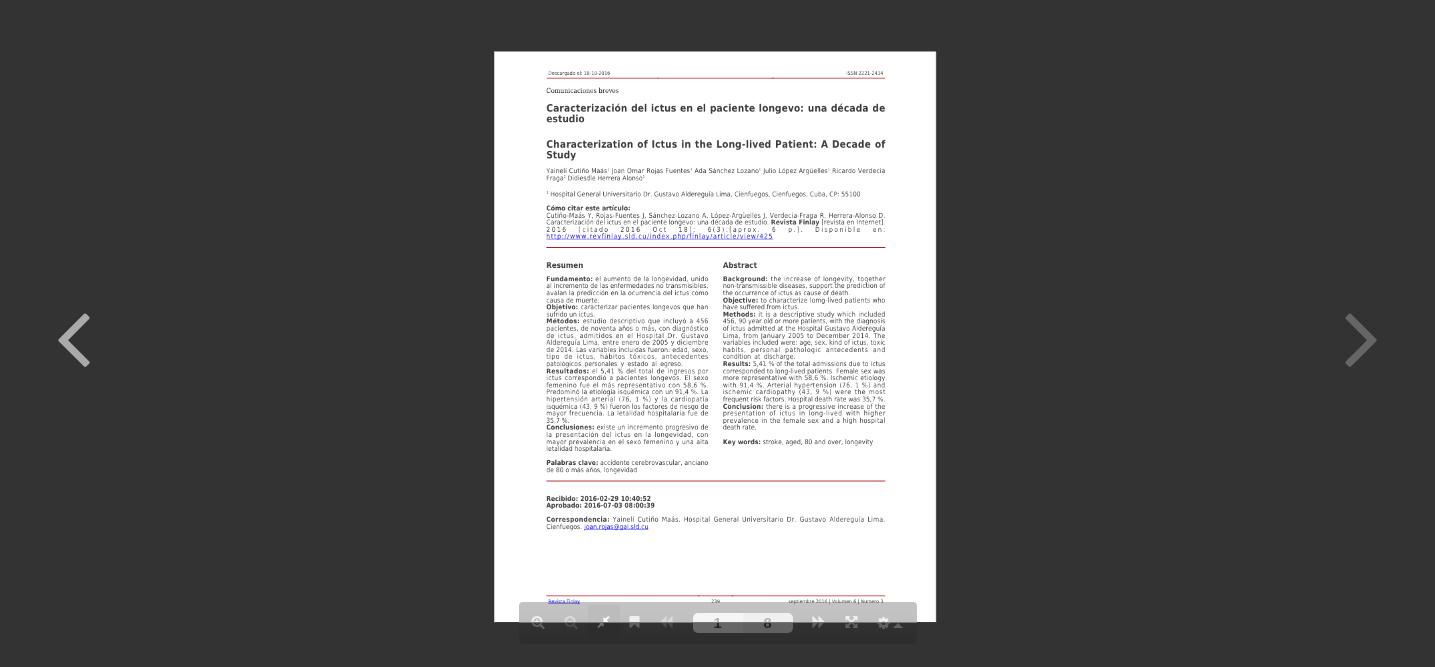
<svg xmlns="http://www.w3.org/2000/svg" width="1435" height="667">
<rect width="100%" height="100%" fill="#333"/>
<image href="1.png" x="58" y="51" width="1319" height="593"/>
</svg>
